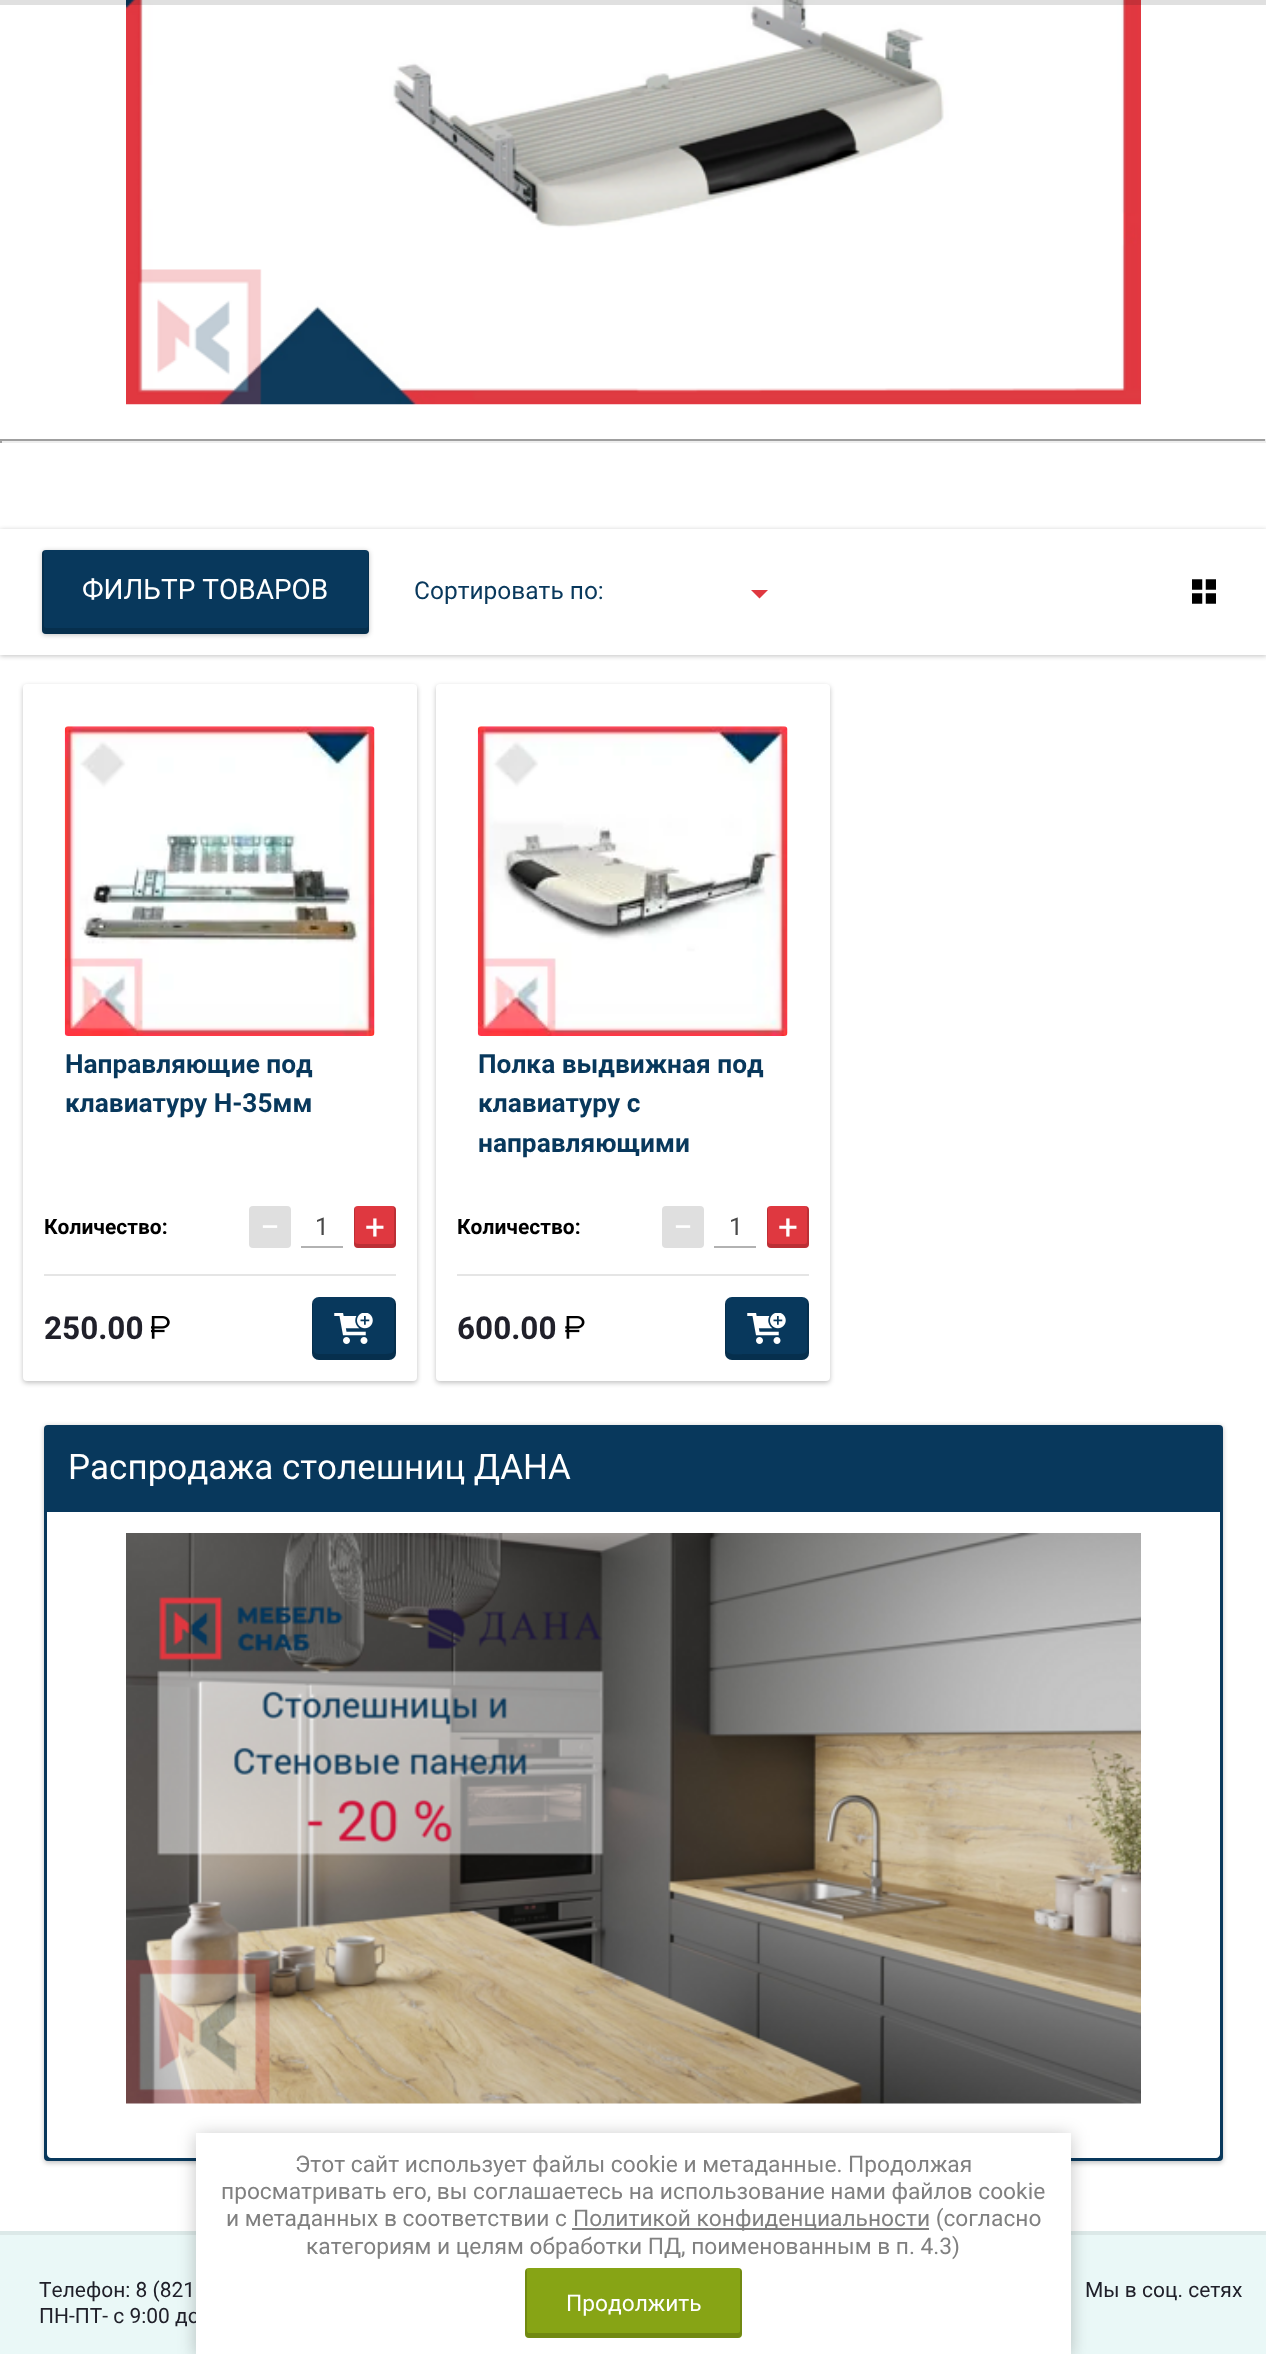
<svg xmlns="http://www.w3.org/2000/svg" width="1266" height="2354">
<style>
.a{font:28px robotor;fill:#fff}
.b{font:24.5px robotor;fill:#08385c}
.c{font:bold 26.25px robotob;fill:#08385c}
.d{font:bold 21px robotob;fill:#000}
.e{font:35px robotor;fill:#fff}
.f{font:24.5px robotor;fill:#484848}
.g{font:bold 31.5px robotob;fill:#20202a}
.h{font:21px robotor;fill:#20202a}
.i{font:22.75px robotor;fill:#808080}
.j{font:22.75px robotor;fill:#fff}
</style>
<rect width="100%" height="100%" fill="#fff"/>
<image href="1.png" x="126" y="0" width="1015" height="405"/>
<path fill="#0000001f" d="M0 0h1266v5H0z"/>
<path fill="#9f9f9f" d="M0 439h1266v2H0z"/>
<path fill="#eee" d="M1265 439h1v4H1265z"/>
<path fill="#eee" d="M0 441h1266v2H0z"/>
<path fill="#9f9f9f" d="M0 439h2v4H0z"/>
<path fill="#0000003d" filter="blur(2.5px)" d="M0 530h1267v126H0z"/>
<path fill="#fff" d="M0 529h1266v126H0z"/>
<rect fill="#0000003d" filter="blur(2.5px)" x="42" y="551" width="327" height="84" rx="4"/>
<rect fill="#08385c" x="42" y="550" width="327" height="84" rx="4"/>
<path fill="#00000029" d="M44 551c-1 0-2 2-2 3v76c0 2 2 4 4 4h319c2 0 4-2 4-4v-76c0-1 0-2-1-3v75c0 1-1 2-2 2h-320c-1 0-2-1-2-2z"/>
<path fill="#df3840" d="M751 590h17l-8.5 8.5z"/>
<image href="2.png" x="1192" y="579" width="24" height="25"/>
<rect fill="#0000003d" filter="blur(2.5px)" x="23" y="686" width="394" height="697" rx="4"/>
<rect fill="#fff" x="23" y="684" width="394" height="697" rx="4"/>
<image href="3.png" x="64" y="726" width="311" height="310"/>
<path fill="#e5e5e5" d="M44 1274h352v2H44z"/>
<rect fill="#dfdfdf" x="249" y="1206" width="42" height="42" rx="4"/>
<path fill="#b2b2b2" d="M301 1246h42v2H301z"/>
<rect fill="#df3840" x="354" y="1206" width="42" height="42" rx="4"/>
<path fill="#00000029" d="M396 1210c0-2-2-4-4-4c3 0 2 7 2 8v22c0 9 1 8-8 8h-23c-11 0-8-1-8-13v-24c-1 1-1 2-1 3v34c0 2 2 4 4 4h34c2 0 4-2 4-4z"/>
<image href="4.png" x="151" y="1316" width="19" height="23"/>
<rect fill="#08385c" x="312" y="1297" width="84" height="63" rx="7"/>
<path fill="#00000029" d="M313 1300c-1 1-1 3-1 4v49c0 4 3 7 7 7h70c4 0 7-3 7-7v-49c0-2-1-4-2-5v34c0 22 4 21-18 21h-46c-16 0-17 2-17-13z"/>
<image href="5.png" x="334" y="1313" width="39" height="31"/>
<rect fill="#0000003d" filter="blur(2.5px)" x="436" y="686" width="394" height="697" rx="4"/>
<rect fill="#fff" x="436" y="684" width="394" height="697" rx="4"/>
<image href="6.png" x="477" y="726" width="311" height="310"/>
<path fill="#e5e5e5" d="M457 1274h352v2H457z"/>
<rect fill="#dfdfdf" x="662" y="1206" width="42" height="42" rx="4"/>
<path fill="#b2b2b2" d="M714 1246h42v2H714z"/>
<rect fill="#df3840" x="767" y="1206" width="42" height="42" rx="4"/>
<path fill="#00000029" d="M809 1210c0-2-2-4-4-4c3 0 2 7 2 8v22c0 9 1 8-8 8h-23c-11 0-8-1-8-13v-24c-1 1-1 2-1 3v34c0 2 2 4 4 4h34c2 0 4-2 4-4z"/>
<image href="7.png" x="565" y="1316" width="20" height="23"/>
<rect fill="#08385c" x="725" y="1297" width="84" height="63" rx="7"/>
<path fill="#00000029" d="M726 1300c-1 1-1 3-1 4v49c0 4 3 7 7 7h70c4 0 7-3 7-7v-49c0-2-1-4-2-5v34c0 22 4 21-17 21h-46c-3 0-16 2-18-4z"/>
<image href="5.png" x="747" y="1313" width="39" height="31"/>
<rect fill="#0000003d" filter="blur(2.5px)" x="44" y="1426" width="1179" height="737" rx="4"/>
<rect fill="#08385c" x="44" y="1425" width="1179" height="736" rx="4"/>
<path fill="#fff" d="M47 1512h1173v642c0 2-2 4-4 4h-1165c-2 0-4-2-4-4z"/>
<image href="8.png" x="126" y="1533" width="1015" height="571"/>
<path fill="#eaf8f7" d="M0 2235h1266v119H0z"/>
<path fill="#dce9e8" d="M0 2231h1266v4H0z"/>
<path fill="#0000003b" filter="blur(9px)" d="M196 2135h875v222H196z"/>
<text class="a" x="82" y="599">ФИЛЬТР ТОВАРОВ</text>
<text class="b" x="414" y="599">Сортировать по:</text>
<text class="c" x="65" y="1073">Направляющие под</text>
<text class="c" x="65" y="1112">клавиатуру Н-35мм</text>
<text class="d" x="44" y="1234">Количество:</text>
<text class="e" x="260" y="1239">−</text>
<text class="f" x="315" y="1235">1</text>
<text class="e" x="365" y="1239">+</text>
<text class="g" x="44" y="1339">250.00</text>
<text class="c" x="478" y="1073">Полка выдвижная под</text>
<text class="c" x="478" y="1112">клавиатуру с</text>
<text class="c" x="478" y="1152">направляющими</text>
<text class="d" x="457" y="1234">Количество:</text>
<text class="e" x="673" y="1239">−</text>
<text class="f" x="729" y="1235">1</text>
<text class="e" x="778" y="1239">+</text>
<text class="g" x="457" y="1339">600.00</text>
<text class="e" x="68" y="1479">Распродажа столешниц ДАНА</text>
<text class="h" x="39" y="2297">Телефон: 8 (821</text>
<text class="h" x="39" y="2323">ПН-ПТ- с 9:00 до</text>
<text class="h" x="1085" y="2297">Мы в соц. сетях</text>
<path fill="#fff" d="M196 2133h875v221H196z"/>
<text class="i" x="295" y="2172">Этот сайт использует файлы cookie и метаданные. Продолжая</text>
<text class="i" x="221" y="2199">просматривать его, вы соглашаетесь на использование нами файлов cookie</text>
<text class="i" x="226" y="2226">и метаданных в соответствии с</text>
<path fill="#808080" d="M572 2228h357v2H572z"/>
<text class="i" x="573" y="2226">Политикой конфиденциальности (согласно</text>
<text class="i" x="306" y="2254">категориям и целям обработки ПД, поименованным в п. 4.3)</text>
<rect fill="#87a415" x="525" y="2268" width="217" height="70" rx="4"/>
<path fill="#00000029" d="M527 2269c-1 0-2 2-2 3v62c0 2 2 4 4 4h209c2 0 4-2 4-4v-62c0-1-1-3-2-3v62c0 1-1 2-2 2h-210l-1-2z"/>
<text class="j" x="566" y="2311">Продолжить</text>
</svg>
